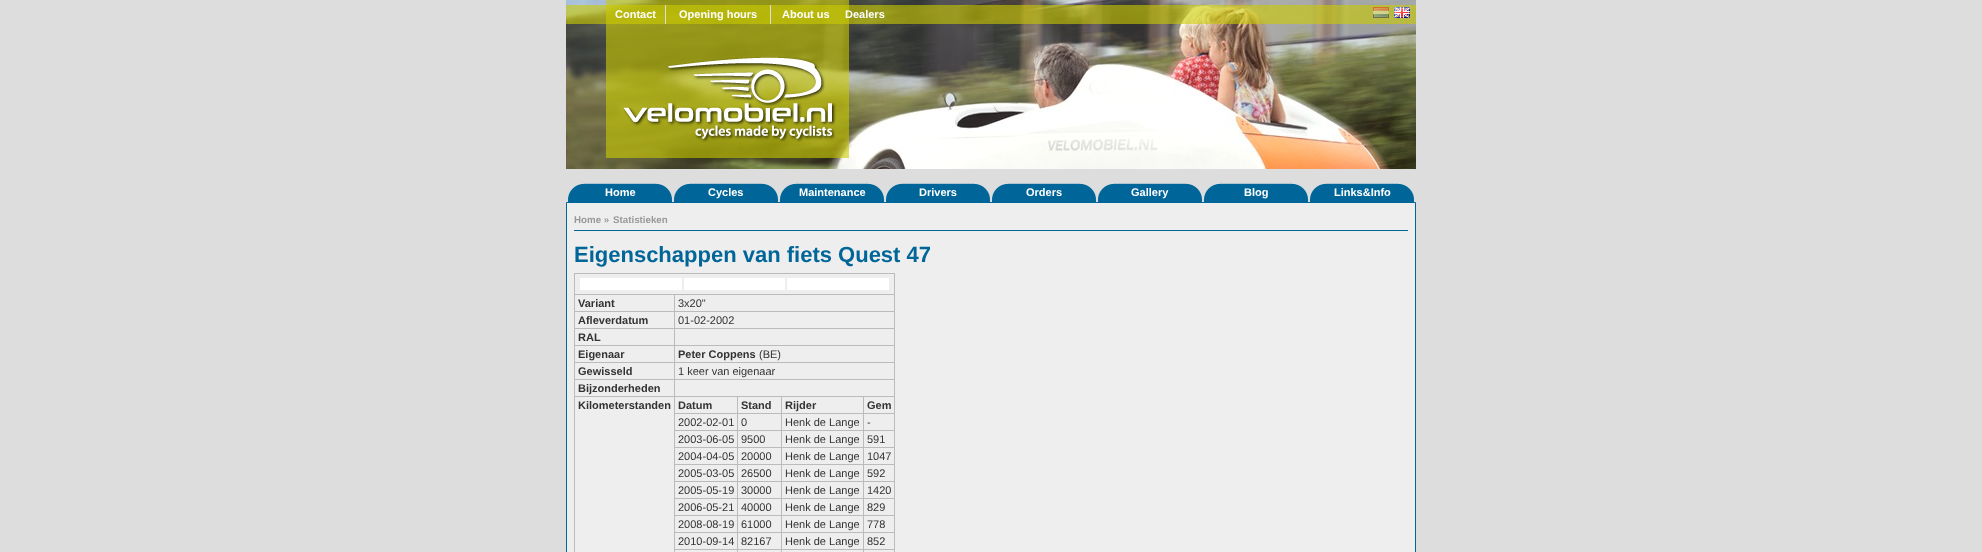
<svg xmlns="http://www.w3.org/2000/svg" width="1982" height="552">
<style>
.a{font:bold 11px Liberation Sans;fill:#fff}
.b{font:bold 9.75px Liberation Sans;fill:#999}
.c{font:bold 22px Liberation Sans;fill:#069}
.d{font:bold 11px Liberation Sans;fill:#333}
.e{font:11px Liberation Sans;fill:#333}
</style>
<rect width="100%" height="100%" fill="#ddd"/>
<image href="1.png" x="566" y="0" width="850" height="169"/>
<path fill="#cccc0099" d="M566 5h850v19H566z"/>
<path fill="#cccc0099" d="M606 0h243v158H606z"/>
<image href="2.png" x="623" y="57" width="213" height="85"/>
<path fill="#ddd" d="M665 5h1v19H665z"/>
<path fill="#ddd" d="M770 5h1v19H770z"/>
<image href="3.png" x="1373" y="7" width="16" height="11"/>
<image href="4.png" x="1394" y="7" width="16" height="11"/>
<image href="5.png" x="568" y="183" width="104" height="19"/>
<image href="5.png" x="674" y="183" width="104" height="19"/>
<image href="5.png" x="780" y="183" width="104" height="19"/>
<image href="5.png" x="886" y="183" width="104" height="19"/>
<image href="5.png" x="992" y="183" width="104" height="19"/>
<image href="5.png" x="1098" y="183" width="104" height="19"/>
<image href="5.png" x="1204" y="183" width="104" height="19"/>
<image href="5.png" x="1310" y="183" width="104" height="19"/>
<path fill="#eee" stroke="#069" d="M566.5 202.5h849v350H566.5z"/>
<path fill="#069" d="M574 230h834v1H574z"/>
<path fill="#bbb" d="M574 273h321v1H574z"/>
<path fill="#bbb" d="M894 273h1v279H894z"/>
<path fill="#bbb" d="M574 273h1v279H574z"/>
<path fill="#fff" d="M580 278h102v12H580z"/>
<path fill="#fff" d="M684 278h101v12H684z"/>
<path fill="#fff" d="M787 278h102v12H787z"/>
<path fill="#bbb" d="M674 294h221v1H674z"/>
<path fill="#bbb" d="M674 311h221v1H674z"/>
<path fill="#bbb" d="M674 328h221v1H674z"/>
<path fill="#bbb" d="M674 345h221v1H674z"/>
<path fill="#bbb" d="M674 362h221v1H674z"/>
<path fill="#bbb" d="M674 379h221v1H674z"/>
<path fill="#bbb" d="M863 396h32v1H863z"/>
<path fill="#bbb" d="M863 413h32v1H863z"/>
<path fill="#bbb" d="M863 430h32v1H863z"/>
<path fill="#bbb" d="M863 447h32v1H863z"/>
<path fill="#bbb" d="M863 464h32v1H863z"/>
<path fill="#bbb" d="M863 481h32v1H863z"/>
<path fill="#bbb" d="M863 498h32v1H863z"/>
<path fill="#bbb" d="M863 515h32v1H863z"/>
<path fill="#bbb" d="M863 532h32v1H863z"/>
<path fill="#bbb" d="M863 549h32v1H863z"/>
<path fill="#bbb" d="M863 549h1v3H863z"/>
<path fill="#bbb" d="M781 549h83v1H781z"/>
<path fill="#bbb" d="M863 532h1v18H863z"/>
<path fill="#bbb" d="M781 532h83v1H781z"/>
<path fill="#bbb" d="M863 515h1v18H863z"/>
<path fill="#bbb" d="M781 515h83v1H781z"/>
<path fill="#bbb" d="M863 498h1v18H863z"/>
<path fill="#bbb" d="M781 498h83v1H781z"/>
<path fill="#bbb" d="M863 481h1v18H863z"/>
<path fill="#bbb" d="M781 481h83v1H781z"/>
<path fill="#bbb" d="M863 464h1v18H863z"/>
<path fill="#bbb" d="M781 464h83v1H781z"/>
<path fill="#bbb" d="M863 447h1v18H863z"/>
<path fill="#bbb" d="M781 447h83v1H781z"/>
<path fill="#bbb" d="M863 430h1v18H863z"/>
<path fill="#bbb" d="M781 430h83v1H781z"/>
<path fill="#bbb" d="M863 413h1v18H863z"/>
<path fill="#bbb" d="M781 413h83v1H781z"/>
<path fill="#bbb" d="M863 396h1v18H863z"/>
<path fill="#bbb" d="M781 396h83v1H781z"/>
<path fill="#bbb" d="M781 549h1v3H781z"/>
<path fill="#bbb" d="M737 549h45v1H737z"/>
<path fill="#bbb" d="M781 532h1v18H781z"/>
<path fill="#bbb" d="M737 532h45v1H737z"/>
<path fill="#bbb" d="M781 515h1v18H781z"/>
<path fill="#bbb" d="M737 515h45v1H737z"/>
<path fill="#bbb" d="M781 498h1v18H781z"/>
<path fill="#bbb" d="M737 498h45v1H737z"/>
<path fill="#bbb" d="M781 481h1v18H781z"/>
<path fill="#bbb" d="M737 481h45v1H737z"/>
<path fill="#bbb" d="M781 464h1v18H781z"/>
<path fill="#bbb" d="M737 464h45v1H737z"/>
<path fill="#bbb" d="M781 447h1v18H781z"/>
<path fill="#bbb" d="M737 447h45v1H737z"/>
<path fill="#bbb" d="M781 430h1v18H781z"/>
<path fill="#bbb" d="M737 430h45v1H737z"/>
<path fill="#bbb" d="M781 413h1v18H781z"/>
<path fill="#bbb" d="M737 413h45v1H737z"/>
<path fill="#bbb" d="M781 396h1v18H781z"/>
<path fill="#bbb" d="M737 396h45v1H737z"/>
<path fill="#bbb" d="M737 549h1v3H737z"/>
<path fill="#bbb" d="M674 549h64v1H674z"/>
<path fill="#bbb" d="M737 532h1v18H737z"/>
<path fill="#bbb" d="M674 532h64v1H674z"/>
<path fill="#bbb" d="M737 515h1v18H737z"/>
<path fill="#bbb" d="M674 515h64v1H674z"/>
<path fill="#bbb" d="M737 498h1v18H737z"/>
<path fill="#bbb" d="M674 498h64v1H674z"/>
<path fill="#bbb" d="M737 481h1v18H737z"/>
<path fill="#bbb" d="M674 481h64v1H674z"/>
<path fill="#bbb" d="M737 464h1v18H737z"/>
<path fill="#bbb" d="M674 464h64v1H674z"/>
<path fill="#bbb" d="M737 447h1v18H737z"/>
<path fill="#bbb" d="M674 447h64v1H674z"/>
<path fill="#bbb" d="M737 430h1v18H737z"/>
<path fill="#bbb" d="M674 430h64v1H674z"/>
<path fill="#bbb" d="M737 413h1v18H737z"/>
<path fill="#bbb" d="M674 413h64v1H674z"/>
<path fill="#bbb" d="M737 396h1v18H737z"/>
<path fill="#bbb" d="M674 396h64v1H674z"/>
<path fill="#bbb" d="M674 549h1v3H674z"/>
<path fill="#bbb" d="M674 532h1v18H674z"/>
<path fill="#bbb" d="M674 515h1v18H674z"/>
<path fill="#bbb" d="M674 498h1v18H674z"/>
<path fill="#bbb" d="M674 481h1v18H674z"/>
<path fill="#bbb" d="M674 464h1v18H674z"/>
<path fill="#bbb" d="M674 447h1v18H674z"/>
<path fill="#bbb" d="M674 430h1v18H674z"/>
<path fill="#bbb" d="M674 413h1v18H674z"/>
<path fill="#bbb" d="M674 396h1v18H674z"/>
<path fill="#bbb" d="M574 396h101v1H574z"/>
<path fill="#bbb" d="M674 379h1v18H674z"/>
<path fill="#bbb" d="M574 379h101v1H574z"/>
<path fill="#bbb" d="M674 362h1v18H674z"/>
<path fill="#bbb" d="M574 362h101v1H574z"/>
<path fill="#bbb" d="M674 345h1v18H674z"/>
<path fill="#bbb" d="M574 345h101v1H574z"/>
<path fill="#bbb" d="M674 328h1v18H674z"/>
<path fill="#bbb" d="M574 328h101v1H574z"/>
<path fill="#bbb" d="M674 311h1v18H674z"/>
<path fill="#bbb" d="M574 311h101v1H574z"/>
<path fill="#bbb" d="M674 294h1v18H674z"/>
<path fill="#bbb" d="M574 294h101v1H574z"/>
<text class="a" x="615" y="18">Contact</text>
<text class="a" x="679" y="18">Opening hours</text>
<text class="a" x="782" y="18">About us</text>
<text class="a" x="845" y="18">Dealers</text>
<text class="a" x="605" y="196">Home</text>
<text class="a" x="708" y="196">Cycles</text>
<text class="a" x="799" y="196">Maintenance</text>
<text class="a" x="919" y="196">Drivers</text>
<text class="a" x="1026" y="196">Orders</text>
<text class="a" x="1131" y="196">Gallery</text>
<text class="a" x="1244" y="196">Blog</text>
<text class="a" x="1334" y="196">Links&amp;Info</text>
<text class="b" x="574" y="223">Home »</text>
<text class="b" x="613" y="223">Statistieken</text>
<text class="c" x="574" y="262">Eigenschappen van fiets Quest 47</text>
<text class="d" x="578" y="307">Variant</text>
<text class="e" x="678" y="307">3x20"</text>
<text class="d" x="578" y="324">Afleverdatum</text>
<text class="e" x="678" y="324">01-02-2002</text>
<text class="d" x="578" y="341">RAL</text>
<text class="d" x="578" y="358">Eigenaar</text>
<text class="d" x="678" y="358">Peter Coppens</text>
<text class="e" x="759" y="358">(BE)</text>
<text class="d" x="578" y="375">Gewisseld</text>
<text class="e" x="678" y="375">1 keer van eigenaar</text>
<text class="d" x="578" y="392">Bijzonderheden</text>
<text class="d" x="578" y="409">Kilometerstanden</text>
<text class="d" x="678" y="409">Datum</text>
<text class="d" x="741" y="409">Stand</text>
<text class="d" x="785" y="409">Rijder</text>
<text class="d" x="867" y="409">Gem</text>
<text class="e" x="678" y="426">2002-02-01</text>
<text class="e" x="741" y="426">0</text>
<text class="e" x="785" y="426">Henk de Lange</text>
<text class="e" x="867" y="426">-</text>
<text class="e" x="678" y="443">2003-06-05</text>
<text class="e" x="741" y="443">9500</text>
<text class="e" x="785" y="443">Henk de Lange</text>
<text class="e" x="867" y="443">591</text>
<text class="e" x="678" y="460">2004-04-05</text>
<text class="e" x="741" y="460">20000</text>
<text class="e" x="785" y="460">Henk de Lange</text>
<text class="e" x="867" y="460">1047</text>
<text class="e" x="678" y="477">2005-03-05</text>
<text class="e" x="741" y="477">26500</text>
<text class="e" x="785" y="477">Henk de Lange</text>
<text class="e" x="867" y="477">592</text>
<text class="e" x="678" y="494">2005-05-19</text>
<text class="e" x="741" y="494">30000</text>
<text class="e" x="785" y="494">Henk de Lange</text>
<text class="e" x="867" y="494">1420</text>
<text class="e" x="678" y="511">2006-05-21</text>
<text class="e" x="741" y="511">40000</text>
<text class="e" x="785" y="511">Henk de Lange</text>
<text class="e" x="867" y="511">829</text>
<text class="e" x="678" y="528">2008-08-19</text>
<text class="e" x="741" y="528">61000</text>
<text class="e" x="785" y="528">Henk de Lange</text>
<text class="e" x="867" y="528">778</text>
<text class="e" x="678" y="545">2010-09-14</text>
<text class="e" x="741" y="545">82167</text>
<text class="e" x="785" y="545">Henk de Lange</text>
<text class="e" x="867" y="545">852</text>
</svg>
